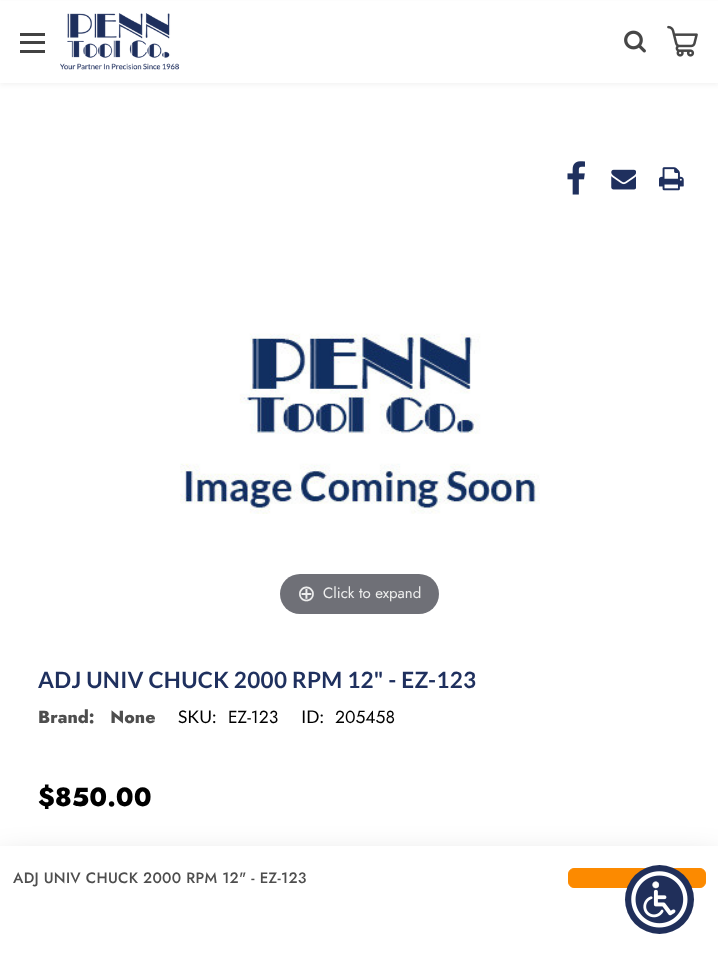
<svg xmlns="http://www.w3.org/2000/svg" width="718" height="958">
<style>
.a{font:22.5px DejaVu Sans;fill:#eee}
.b{font:15px Jost;fill:#eee}
.c{font:bold 22.5px Lato;letter-spacing:0.3px;fill:#1f305e}
.d{font:800 17.5px Jost;fill:#4e4e4e}
.e{font:17.5px Lato;fill:#000}
.f{font:17.5px Jost;fill:#000}
.g{font:800 26.25px Jost;fill:#000}
.h{font:500 15px Jost;letter-spacing:0.3px;fill:#4e4e4e}
</style>
<rect width="100%" height="100%" fill="#fff"/>
<path fill="#2c2c2c0f" filter="blur(2.5px)" d="M0 3h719v82H0z"/>
<path fill="#fff" d="M0 1h718v82H0z"/>
<path fill="#424242" d="M20 41h25v3H20z"/>
<path fill="#424242" d="M20 33h25v3H20z"/>
<path fill="#424242" d="M20 50h25v3H20z"/>
<image href="1.png" x="60" y="13" width="120" height="57"/>
<image href="2.png" x="624" y="30" width="22" height="23"/>
<image href="3.png" x="667" y="25" width="31" height="32"/>
<image href="4.png" x="180" y="333" width="360" height="181"/>
<rect fill="#6f7077" x="280" y="574" width="159" height="40" rx="20"/>
<image href="5.png" x="567" y="161" width="18" height="34"/>
<image href="6.png" x="611" y="169" width="25" height="21"/>
<image href="7.png" x="659" y="167" width="25" height="24"/>
<path fill="#00000040" filter="blur(17.5px)" d="M0 864h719v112H0z"/>
<path fill="#fff" d="M0 846h718v112H0z"/>
<rect fill="#fc8a00" stroke="#fc8a00" x="568.5" y="868.5" width="137" height="19" rx="5.5"/>
<circle fill="#202f5a" cx="659.5" cy="899.5" r="34.5"/>
<image href="8.png" x="631" y="871" width="57" height="57"/>
<text class="a" x="297" y="601">⊕</text>
<text class="b" x="323" y="598">Click to expand</text>
<text class="c" x="38" y="688">ADJ UNIV CHUCK 2000 RPM 12" - EZ-123</text>
<text class="d" xml:space="preserve" x="38" y="723">Brand:   None</text>
<text class="e" x="178" y="723">SKU:</text>
<text class="f" x="228" y="723">EZ-123</text>
<text class="e" x="301" y="723">ID:</text>
<text class="f" x="335" y="723">205458</text>
<text class="g" x="38" y="806">$850.00</text>
<text class="h" x="13" y="883">ADJ UNIV CHUCK 2000 RPM 12" - EZ-123</text>
</svg>
